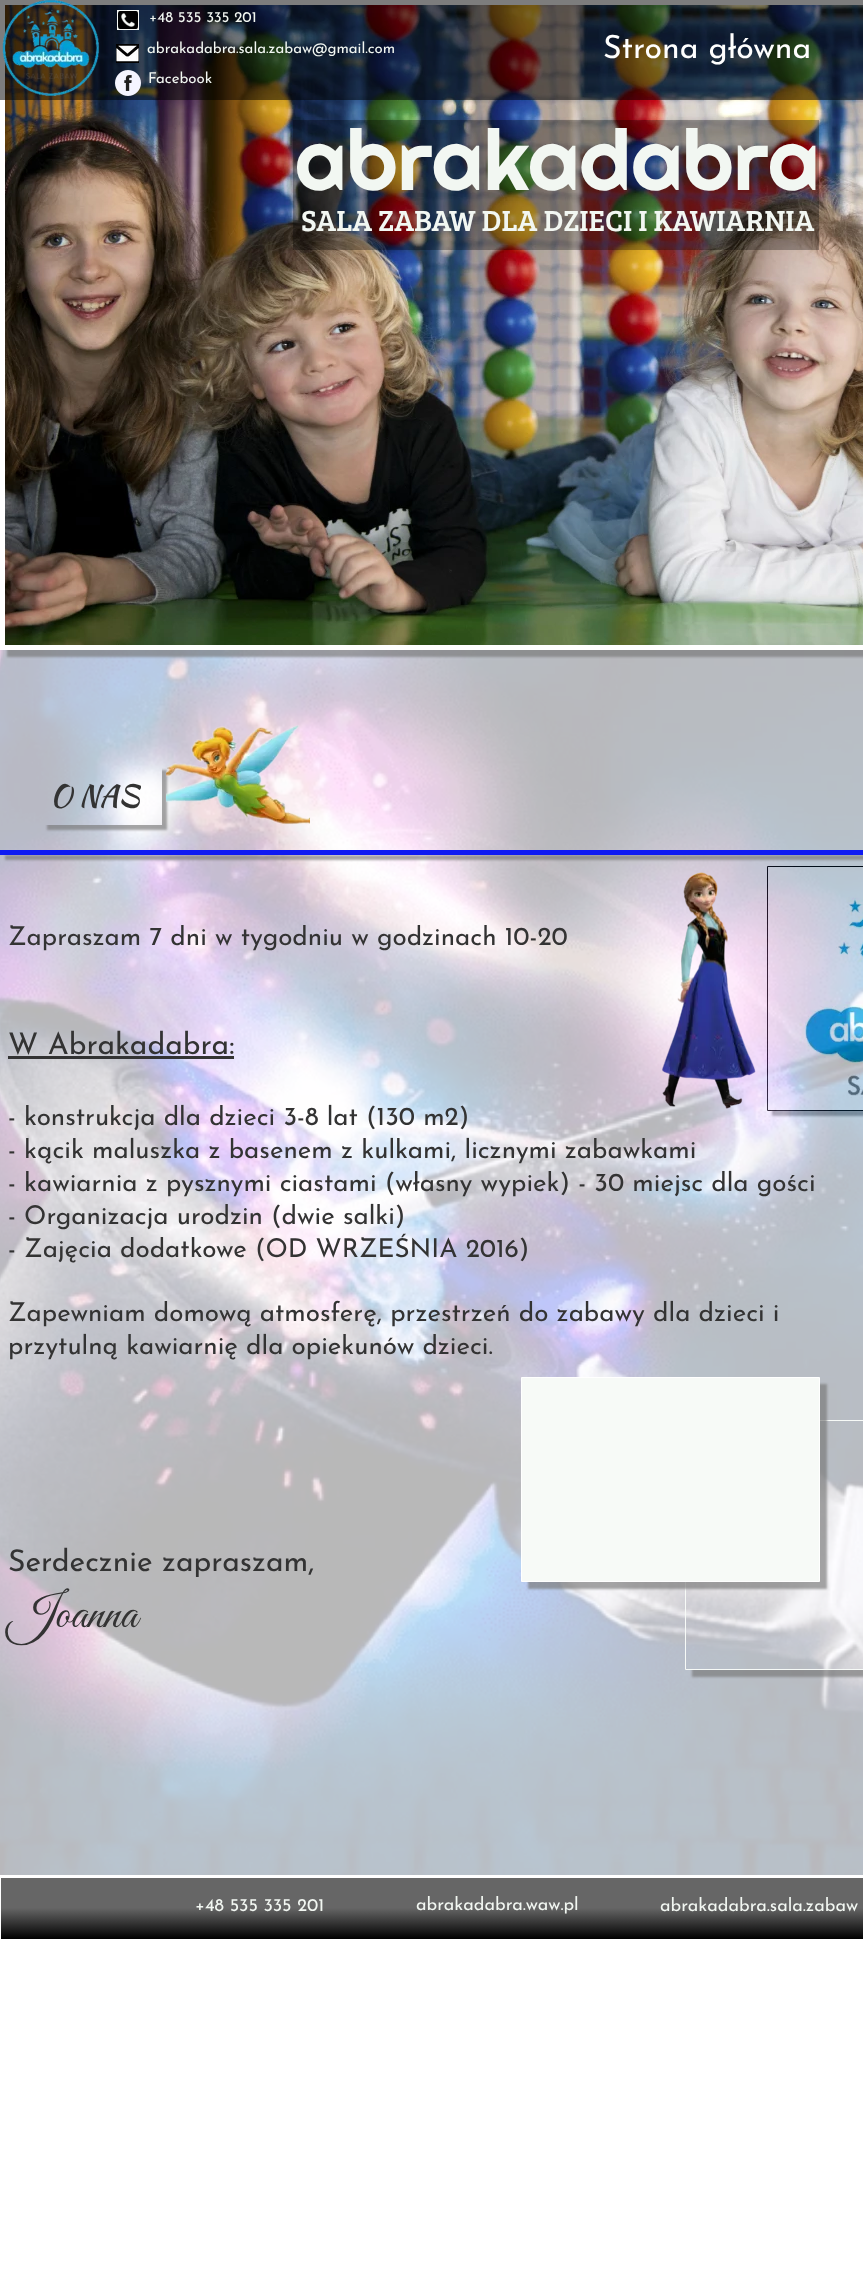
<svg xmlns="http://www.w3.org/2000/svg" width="863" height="2285">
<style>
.a{font:100 15px Josefin Sans;fill:#f2f7f2}
.b{font:100 32px Josefin Sans;fill:#fff}
.c{font:85px Righteous;fill:#f2f7f2}
.d{font:30px Bree Serif;fill:#f2f7f2}
.e{font:30px Kaushan Script;fill:#333}
.f{font:100 26px Josefin Sans;fill:#333}
.g{font:100 30px Josefin Sans;fill:#333}
.h{font:48px Great Vibes;fill:#333}
.i{font:100 18px Josefin Sans;fill:#f2f7f2}
</style>
<defs>
<clipPath id="clip1"><path d="M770 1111h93v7H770z"/></clipPath>
<clipPath id="clip2"><path d="M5 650h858v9H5z"/></clipPath>
<clipPath id="clip3"><path d="M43 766h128v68h-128zm-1-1h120v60h-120z" clip-rule="evenodd"/></clipPath>
<clipPath id="clip4"><path d="M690 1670h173v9H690z"/></clipPath>
<linearGradient id="g1" gradientUnits="userSpaceOnUse" x1="600" y1="1939" x2="600" y2="1878"><stop offset="0" stop-color="#000"/><stop offset="0.51" stop-color="#666"/></linearGradient>
</defs>
<rect width="100%" height="100%" fill="#fff"/>
<g clip-path="url(#clip1)">
<path fill="#777777a6" filter="blur(1px)" d="M772 871h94v245H772z"/>
</g>
<path fill="none" stroke="#000" d="M767.5 866.5h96v244H767.5z"/>
<image href="9.png" x="799" y="897" width="64" height="201"/>
<image href="6.png" x="0" y="650" width="863" height="1225"/>
<g clip-path="url(#clip2)">
<path fill="#777777a6" filter="blur(1px)" d="M7 7h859v650H7z"/>
</g>
<image href="2.png" x="5" y="5" width="858" height="640"/>
<path fill="#00000082" d="M0 0h863v100H0z"/>
<image href="1.png" x="2" y="0" width="97" height="96"/>
<path fill="#f7faf7" d="M117 10h22v20H117z"/>
<image href="3.png" x="118" y="11" width="20" height="18"/>
<image href="4.png" x="116" y="44" width="23" height="19"/>
<image href="5.png" x="115" y="70" width="26" height="26"/>
<path fill="#0000004d" d="M293 120h526v130H293z"/>
<g clip-path="url(#clip3)">
<path fill="#777777a6" filter="blur(1px)" d="M47 770h120v60H47z"/>
</g>
<image href="7.png" x="166" y="725" width="144" height="100"/>
<path fill="#777777a6" filter="blur(1px)" d="M5 855h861v5H5z"/>
<path fill="#0e1af2" d="M0 850h863v5H0z"/>
<image href="8.png" x="662" y="872" width="94" height="237"/>
<path fill="#333" d="M8 1056h226v3H8z"/>
<g clip-path="url(#clip4)">
<path fill="#777777a6" filter="blur(1px)" d="M692 1427h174v250H692z"/>
</g>
<path fill="none" stroke="#f7faf7" d="M685.5 1420.5h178v249H685.5z"/>
<path fill="#777777a6" filter="blur(1px)" d="M528 1384h299v205H528z"/>
<path fill="#f7faf7" stroke="#fff" d="M521.5 1377.5h298v204H521.5z"/>
<path fill="url(#g1)" d="M1 1878h862v61H1z"/>
<text class="a" x="149" y="22">+48 535 335 201</text>
<text class="a" x="147" y="53">abrakadabra.sala.zabaw@gmail.com</text>
<text class="b" x="603" y="58">Strona główna</text>
<text class="a" x="148" y="83">Facebook</text>
<text class="c" x="295" y="190">abrakadabra</text>
<text class="d" x="301" y="231">SALA ZABAW DLA DZIECI I KAWIARNIA</text>
<text class="e" x="50" y="806">O NAS</text>
<text class="f" x="8" y="945">Zapraszam 7 dni w tygodniu w godzinach 10-20</text>
<text class="g" x="8" y="1054">W Abrakadabra:</text>
<text class="f" x="8" y="1125">- konstrukcja dla dzieci 3-8 lat (130 m2)</text>
<text class="f" x="8" y="1158">- kącik maluszka z basenem z kulkami, licznymi zabawkami</text>
<text class="f" x="8" y="1191">- kawiarnia z pysznymi ciastami (własny wypiek) - 30 miejsc dla gości</text>
<text class="f" x="8" y="1224">- Organizacja urodzin (dwie salki)</text>
<text class="f" x="8" y="1257">- Zajęcia dodatkowe (OD WRZEŚNIA 2016)</text>
<text class="f" x="8" y="1321">Zapewniam domową atmosferę, przestrzeń do zabawy dla dzieci i</text>
<text class="f" x="8" y="1354">przytulną kawiarnię dla opiekunów dzieci.</text>
<text class="g" x="8" y="1571">Serdecznie zapraszam,</text>
<text class="h" x="8" y="1627">Joanna</text>
<text class="i" x="195" y="1911">+48 535 335 201</text>
<text class="i" x="416" y="1910">abrakadabra.waw.pl</text>
<text class="i" x="660" y="1911">abrakadabra.sala.zabaw</text>
</svg>
